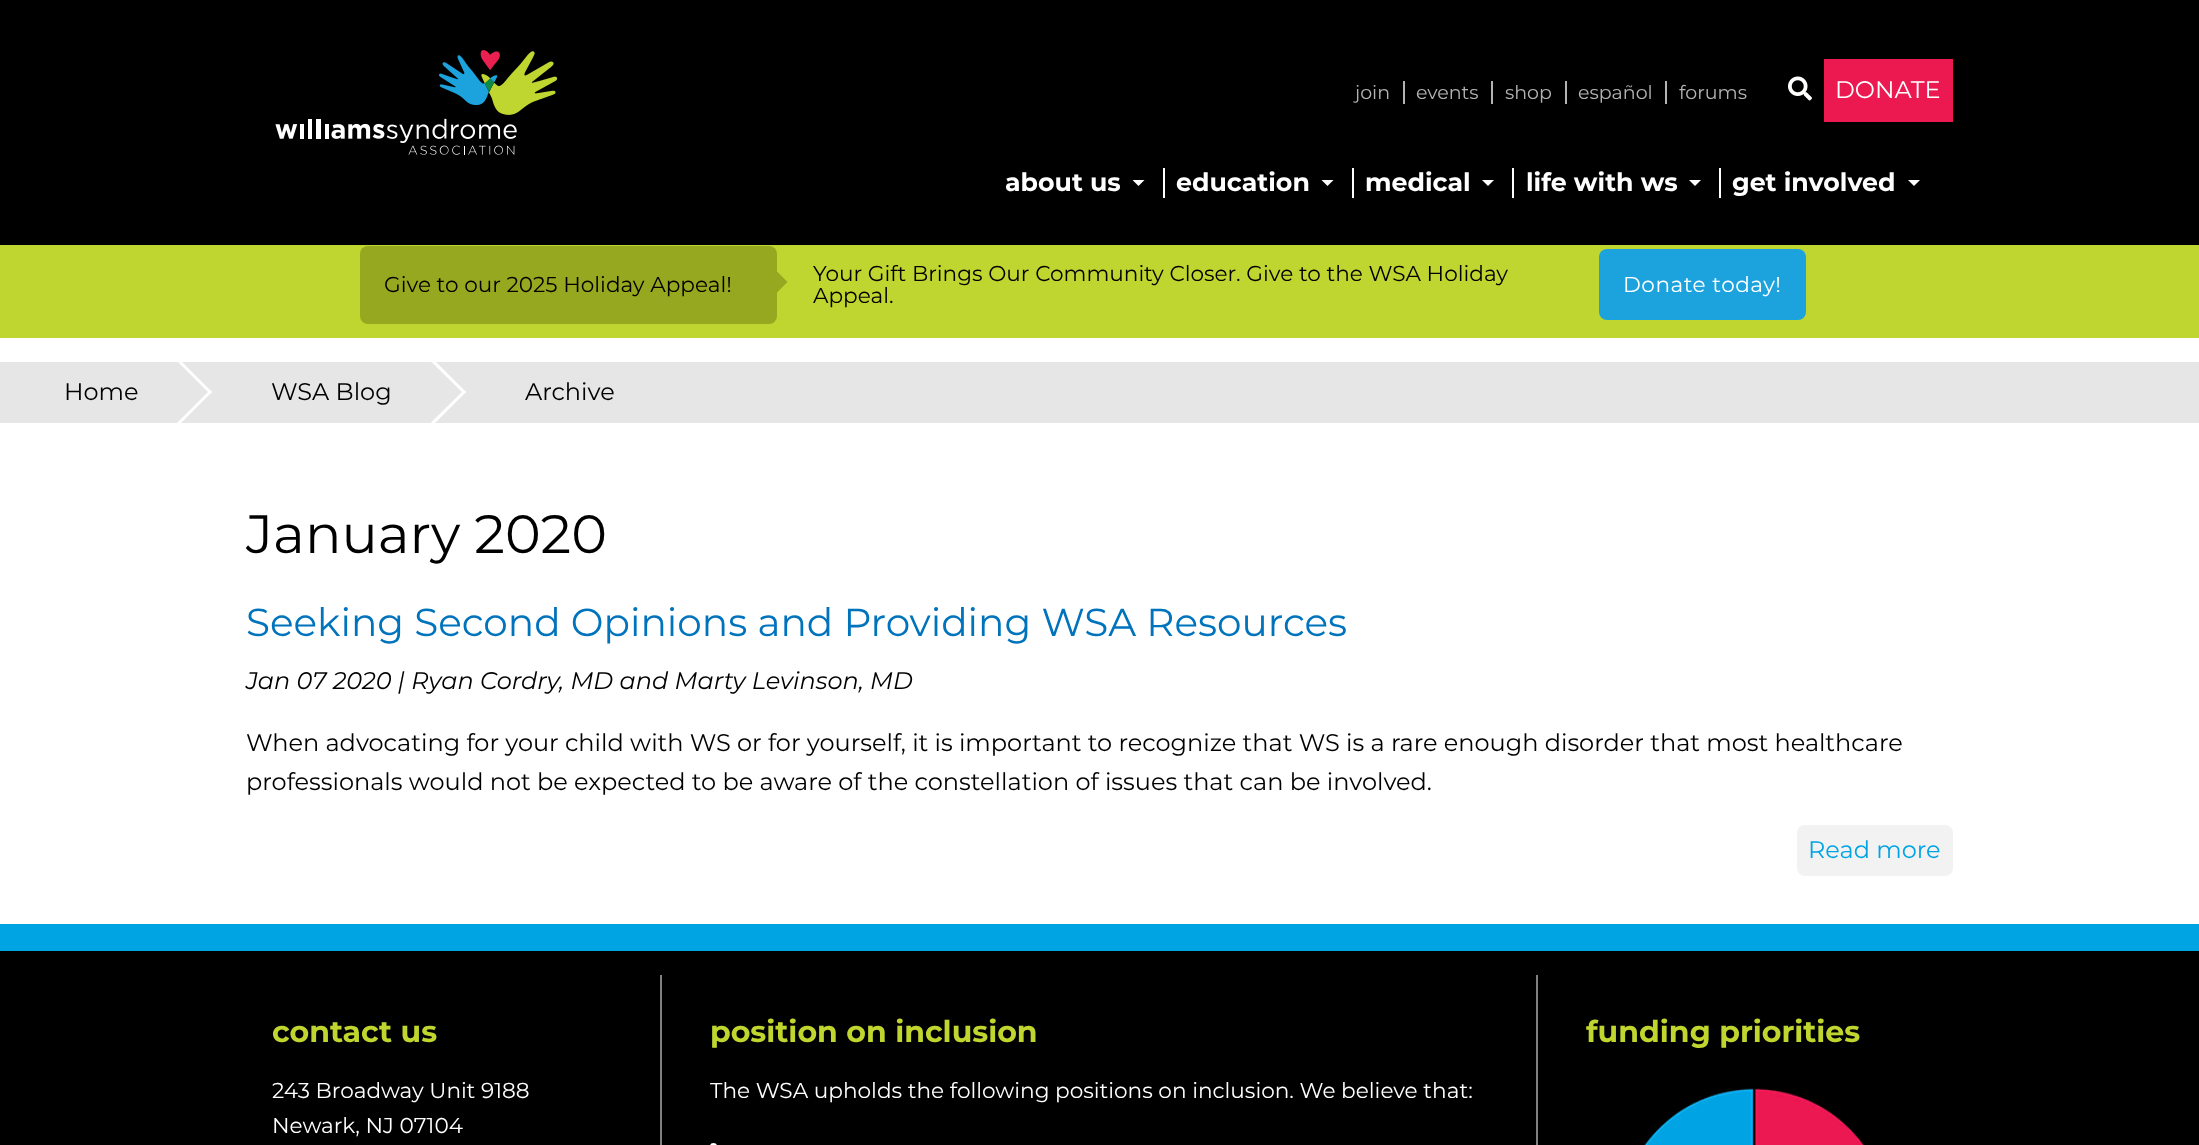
<svg xmlns="http://www.w3.org/2000/svg" width="2199" height="1145">
<style>
.a{font:19px Montserrat;fill:#b3b3b2}
.b{font:24px Montserrat;fill:#fff}
.c{font:bold 25.25px Montserrat;fill:#fff}
.d{font:21.6px Montserrat;fill:#000001}
.e{font:21.6px Montserrat;letter-spacing:0.5px;fill:#fff}
.f{font:24px Montserrat;fill:#000001}
.g{font:54px Montserrat;fill:#000001}
.h{font:39px Montserrat;fill:#0073bd}
.i{font:italic 100 24px Montserrat;fill:#000001}
.j{font:24px Montserrat;fill:#01a4e3}
.k{font:bold 30px Montserrat;fill:#c0d62e}
.l{font:21.6px Montserrat;fill:#fff}
</style>
<defs>
<clipPath id="clip1"><path d="M0 362h2199v61H0z"/></clipPath>
</defs>
<rect width="100%" height="100%" fill="#fff"/>
<path fill="#000" d="M0 0h2199v245H0z"/>
<image href="1.png" x="275" y="50" width="283" height="105"/>
<path fill="#b3b3b3" d="M1403 81h2v23H1403z"/>
<path fill="#b3b3b3" d="M1491 81h2v23H1491z"/>
<path fill="#b3b3b3" d="M1565 81h2v23H1565z"/>
<path fill="#b3b3b3" d="M1665 81h2v23H1665z"/>
<image href="2.png" x="1788" y="76" width="24" height="25"/>
<path fill="#ec1850" d="M1824 59h129v63H1824z"/>
<path fill="#fff" d="M1163 168h2v30H1163z"/>
<path fill="#fff" d="M1132.5 180h12l-6 6z"/>
<path fill="#fff" d="M1352 168h2v30H1352z"/>
<path fill="#fff" d="M1321.5 180h12l-6 6z"/>
<path fill="#fff" d="M1512 168h2v30H1512z"/>
<path fill="#fff" d="M1482 180h12l-6 6z"/>
<path fill="#fff" d="M1719 168h2v30H1719z"/>
<path fill="#fff" d="M1689 180h12l-6 6z"/>
<path fill="#fff" d="M1908 180h12l-6 6z"/>
<path fill="#bfd530" d="M0 245h2199v93H0z"/>
<rect fill="#96a81f" x="360" y="246" width="417" height="78" rx="8"/>
<path fill="#96a81f" d="M775.5 294v-24l12 12z"/>
<rect fill="#1ca3dd" x="1599" y="249" width="207" height="71" rx="8"/>
<path fill="#e6e6e6" d="M0 362h2199v61H0z"/>
<g clip-path="url(#clip1)">
<path fill="#fff" d="M176 356l36 36l-2 2l-36-36z"/>
<path fill="#fff" d="M210 390l2 2l-36 36l-2-2z"/>
<path fill="#fff" d="M430 356l36 36l-2 2l-36.5-36z"/>
<path fill="#fff" d="M464 390l2 2l-36 36l-2.5-2z"/>
</g>
<rect fill="#f2f2f2" x="1797" y="825" width="156" height="51" rx="8"/>
<path fill="#000" d="M0 951h2199v194H0z"/>
<path fill="#01a4e3" d="M0 924h2199v27H0z"/>
<path fill="#808080" d="M660 975h2v170H660z"/>
<path fill="#808080" d="M1536 975h2v170H1536z"/>
<rect fill="#fff" x="710" y="1143" width="7" height="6" rx="3.5"/>
<image href="3.png" x="1644" y="1088" width="220" height="57"/>
<text class="a" x="1355" y="99">join</text>
<text class="a" x="1416" y="99">events</text>
<text class="a" x="1505" y="99">shop</text>
<text class="a" x="1578" y="99">español</text>
<text class="a" x="1679" y="99">forums</text>
<text class="b" x="1835" y="98">DONATE</text>
<text class="c" x="1005" y="191">about us</text>
<text class="c" x="1176" y="191">education</text>
<text class="c" x="1365" y="191">medical</text>
<text class="c" x="1526" y="191">life with ws</text>
<text class="c" x="1732" y="191">get involved</text>
<text class="d" x="384" y="292">Give to our 2025 Holiday Appeal!</text>
<text class="d" x="813" y="281">Your Gift Brings Our Community Closer. Give to the WSA Holiday</text>
<text class="d" x="813" y="303">Appeal.</text>
<text class="e" x="1623" y="292">Donate today!</text>
<text class="f" x="64" y="400">Home</text>
<text class="f" x="271" y="400">WSA Blog</text>
<text class="f" x="525" y="400">Archive</text>
<text class="g" x="246" y="553">January 2020</text>
<text class="h" x="246" y="636">Seeking Second Opinions and Providing WSA Resources</text>
<text class="i" x="246" y="689">Jan 07 2020 | Ryan Cordry, MD and Marty Levinson, MD</text>
<text class="f" x="246" y="751">When advocating for your child with WS or for yourself, it is important to recognize that WS is a rare enough disorder that most healthcare</text>
<text class="f" x="246" y="790">professionals would not be expected to be aware of the constellation of issues that can be involved.</text>
<text class="j" x="1808" y="858">Read more</text>
<text class="k" x="272" y="1042">contact us</text>
<text class="l" x="272" y="1098">243 Broadway Unit 9188</text>
<text class="l" x="272" y="1133">Newark, NJ 07104</text>
<text class="k" x="710" y="1042">position on inclusion</text>
<text class="l" x="710" y="1098">The WSA upholds the following positions on inclusion. We believe that:</text>
<text class="k" x="1586" y="1042">funding priorities</text>
</svg>
